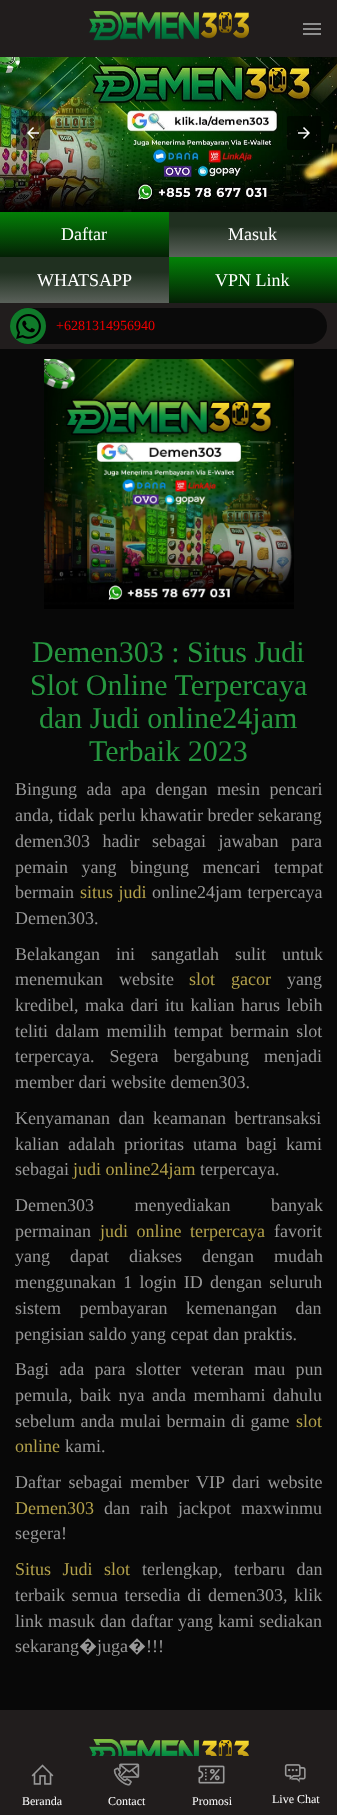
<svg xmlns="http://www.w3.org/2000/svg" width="337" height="1815">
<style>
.a{font:18px Liberation Serif;fill:#fff}
.b{font:14px Liberation Serif;fill:#e00}
.c{font:30px Liberation Serif;fill:#269840}
.d{font:18px Liberation Serif;fill:#999}
.e{font:18px Liberation Serif;fill:#b3a14b}
.f{font:18px Noto Sans;fill:#999}
.g{font:12px Liberation Serif;fill:#fff}
</style>
<defs>
<linearGradient id="g1" gradientUnits="userSpaceOnUse" x1="85" y1="211" x2="85" y2="257"><stop offset="0" stop-color="#038307"/><stop offset="1" stop-color="#042005"/></linearGradient>
<linearGradient id="g2" gradientUnits="userSpaceOnUse" x1="253" y1="211" x2="253" y2="257"><stop offset="0.33" stop-color="#203020"/><stop offset="1" stop-color="#5a615a"/></linearGradient>
<linearGradient id="g3" gradientUnits="userSpaceOnUse" x1="85" y1="257" x2="85" y2="303"><stop offset="0.33" stop-color="#203020"/><stop offset="1" stop-color="#5a615a"/></linearGradient>
<linearGradient id="g4" gradientUnits="userSpaceOnUse" x1="253" y1="257" x2="253" y2="303"><stop offset="0" stop-color="#038307"/><stop offset="1" stop-color="#042005"/></linearGradient>
</defs>
<rect width="100%" height="100%" fill="#211d1d"/>
<image href="1.png" x="89" y="11" width="160" height="30"/>
<path fill="#8e8e8e" d="M303 28h18v2H303z"/>
<path fill="#8e8e8e" d="M303 23h18v2H303z"/>
<path fill="#8e8e8e" d="M303 33h18v2H303z"/>
<image href="2.png" x="0" y="57" width="337" height="155"/>
<rect fill="#00000080" x="16" y="116" width="34" height="34" rx="2"/>
<image href="3.png" x="27" y="127" width="12" height="12"/>
<rect fill="#00000080" x="287" y="116" width="34" height="34" rx="2"/>
<image href="4.png" x="298" y="127" width="12" height="12"/>
<path fill="url(#g1)" d="M0 212h169v45H0z"/>
<path fill="url(#g2)" d="M169 212h168v45H169z"/>
<path fill="url(#g3)" d="M0 257h169v46H0z"/>
<path fill="url(#g4)" d="M169 257h168v46H169z"/>
<rect fill="#0a0a0a" x="10" y="308" width="317" height="36" rx="18"/>
<circle fill="#107a2a" cx="28" cy="326" r="18"/>
<image href="5.png" x="16" y="314" width="25" height="25"/>
<path fill="#080808" d="M0 349h337v1361H0z"/>
<image href="6.png" x="44" y="359" width="250" height="250"/>
<image href="7.png" x="89" y="1739" width="160" height="17"/>
<image href="8.png" x="31" y="1764" width="23" height="21"/>
<image href="9.png" x="113" y="1763" width="27" height="23"/>
<image href="10.png" x="198" y="1765" width="27" height="19"/>
<image href="11.png" x="284" y="1764" width="22" height="19"/>
<text class="a" x="61" y="240">Daftar</text>
<text class="a" x="228" y="240">Masuk</text>
<text class="a" x="37" y="286">WHATSAPP</text>
<text class="a" x="215" y="286">VPN Link</text>
<text class="b" x="56" y="330">+6281314956940</text>
<text class="c" x="32" y="662">Demen303 : Situs Judi</text>
<text class="c" x="30" y="695">Slot Online Terpercaya</text>
<text class="c" x="39" y="728">dan Judi online24jam</text>
<text class="c" x="89" y="761">Terbaik 2023</text>
<text class="d" x="15" y="795" word-spacing="5">Bingung ada apa dengan mesin pencari</text>
<text class="d" x="15" y="821">anda, tidak perlu khawatir breder sekarang</text>
<text class="d" x="15" y="847" word-spacing="8">demen303 hadir sebagai jawaban para</text>
<text class="d" x="15" y="873" word-spacing="9">pemain yang bingung mencari tempat</text>
<text class="d" x="15" y="898">bermain</text>
<text class="e" x="80" y="898" word-spacing="1">situs judi</text>
<text class="d" x="152" y="898" word-spacing="1">online24jam terpercaya</text>
<text class="d" x="15" y="924">Demen303.</text>
<text class="d" x="15" y="960" word-spacing="11.5">Belakangan ini sangatlah sulit untuk</text>
<text class="d" x="15" y="985" word-spacing="11.5">menemukan website</text>
<text class="e" x="189" y="985" word-spacing="11.5">slot gacor</text>
<text class="d" x="287" y="985">yang</text>
<text class="d" x="15" y="1011" word-spacing="2">kredibel, maka dari itu kalian harus lebih</text>
<text class="d" x="15" y="1037" word-spacing="2.75">teliti dalam memilih tempat bermain slot</text>
<text class="d" x="15" y="1062" word-spacing="10.5">terpercaya. Segera bergabung menjadi</text>
<text class="d" x="15" y="1088">member dari website demen303.</text>
<text class="d" x="15" y="1124" word-spacing="4">Kenyamanan dan keamanan bertransaksi</text>
<text class="d" x="15" y="1150" word-spacing="4.5">kalian adalah prioritas utama bagi kami</text>
<text class="d" x="15" y="1175">sebagai</text>
<text class="e" x="73" y="1175">judi online24jam</text>
<text class="d" x="200" y="1175">terpercaya.</text>
<text class="d" x="15" y="1211" word-spacing="36">Demen303 menyediakan banyak</text>
<text class="d" x="15" y="1237">permainan</text>
<text class="e" x="100" y="1237" word-spacing="4">judi online terpercaya</text>
<text class="d" x="274" y="1237">favorit</text>
<text class="d" x="15" y="1262" word-spacing="15.5">yang dapat diakses dengan mudah</text>
<text class="d" x="15" y="1288" word-spacing="2.75">menggunakan 1 login ID dengan seluruh</text>
<text class="d" x="15" y="1314" word-spacing="14">sistem pembayaran kemenangan dan</text>
<text class="d" x="15" y="1340">pengisian saldo yang cepat dan praktis.</text>
<text class="d" x="15" y="1375" word-spacing="5.75">Bagi ada para slotter veteran mau pun</text>
<text class="d" x="15" y="1401" word-spacing="3">pemula, baik nya anda memhami dahulu</text>
<text class="d" x="15" y="1427" word-spacing="1">sebelum anda mulai bermain di game</text>
<text class="e" x="296" y="1427">slot</text>
<text class="e" x="15" y="1452">online</text>
<text class="d" x="65" y="1452">kami.</text>
<text class="d" x="15" y="1488" word-spacing="3">Daftar sebagai member VIP dari website</text>
<text class="e" x="15" y="1514">Demen303</text>
<text class="d" x="104" y="1514" word-spacing="5.5">dan raih jackpot maxwinmu</text>
<text class="d" x="15" y="1539">segera!</text>
<text class="e" x="15" y="1575" word-spacing="7">Situs Judi slot</text>
<text class="d" x="142" y="1575" word-spacing="7">terlengkap, terbaru dan</text>
<text class="d" x="15" y="1601" word-spacing="2.25">terbaik semua tersedia di demen303, klik</text>
<text class="d" x="15" y="1627" word-spacing="0.5">link masuk dan daftar yang kami sediakan</text>
<text class="d" x="15" y="1652">sekarang</text>
<text class="f" x="79" y="1652">�</text>
<text class="d" x="97" y="1652">juga</text>
<text class="f" x="128" y="1652">�</text>
<text class="d" x="146" y="1652">!!!</text>
<text class="g" x="22" y="1805">Beranda</text>
<text class="g" x="108" y="1805">Contact</text>
<text class="g" x="192" y="1805">Promosi</text>
<text class="g" x="272" y="1803">Live Chat</text>
</svg>
